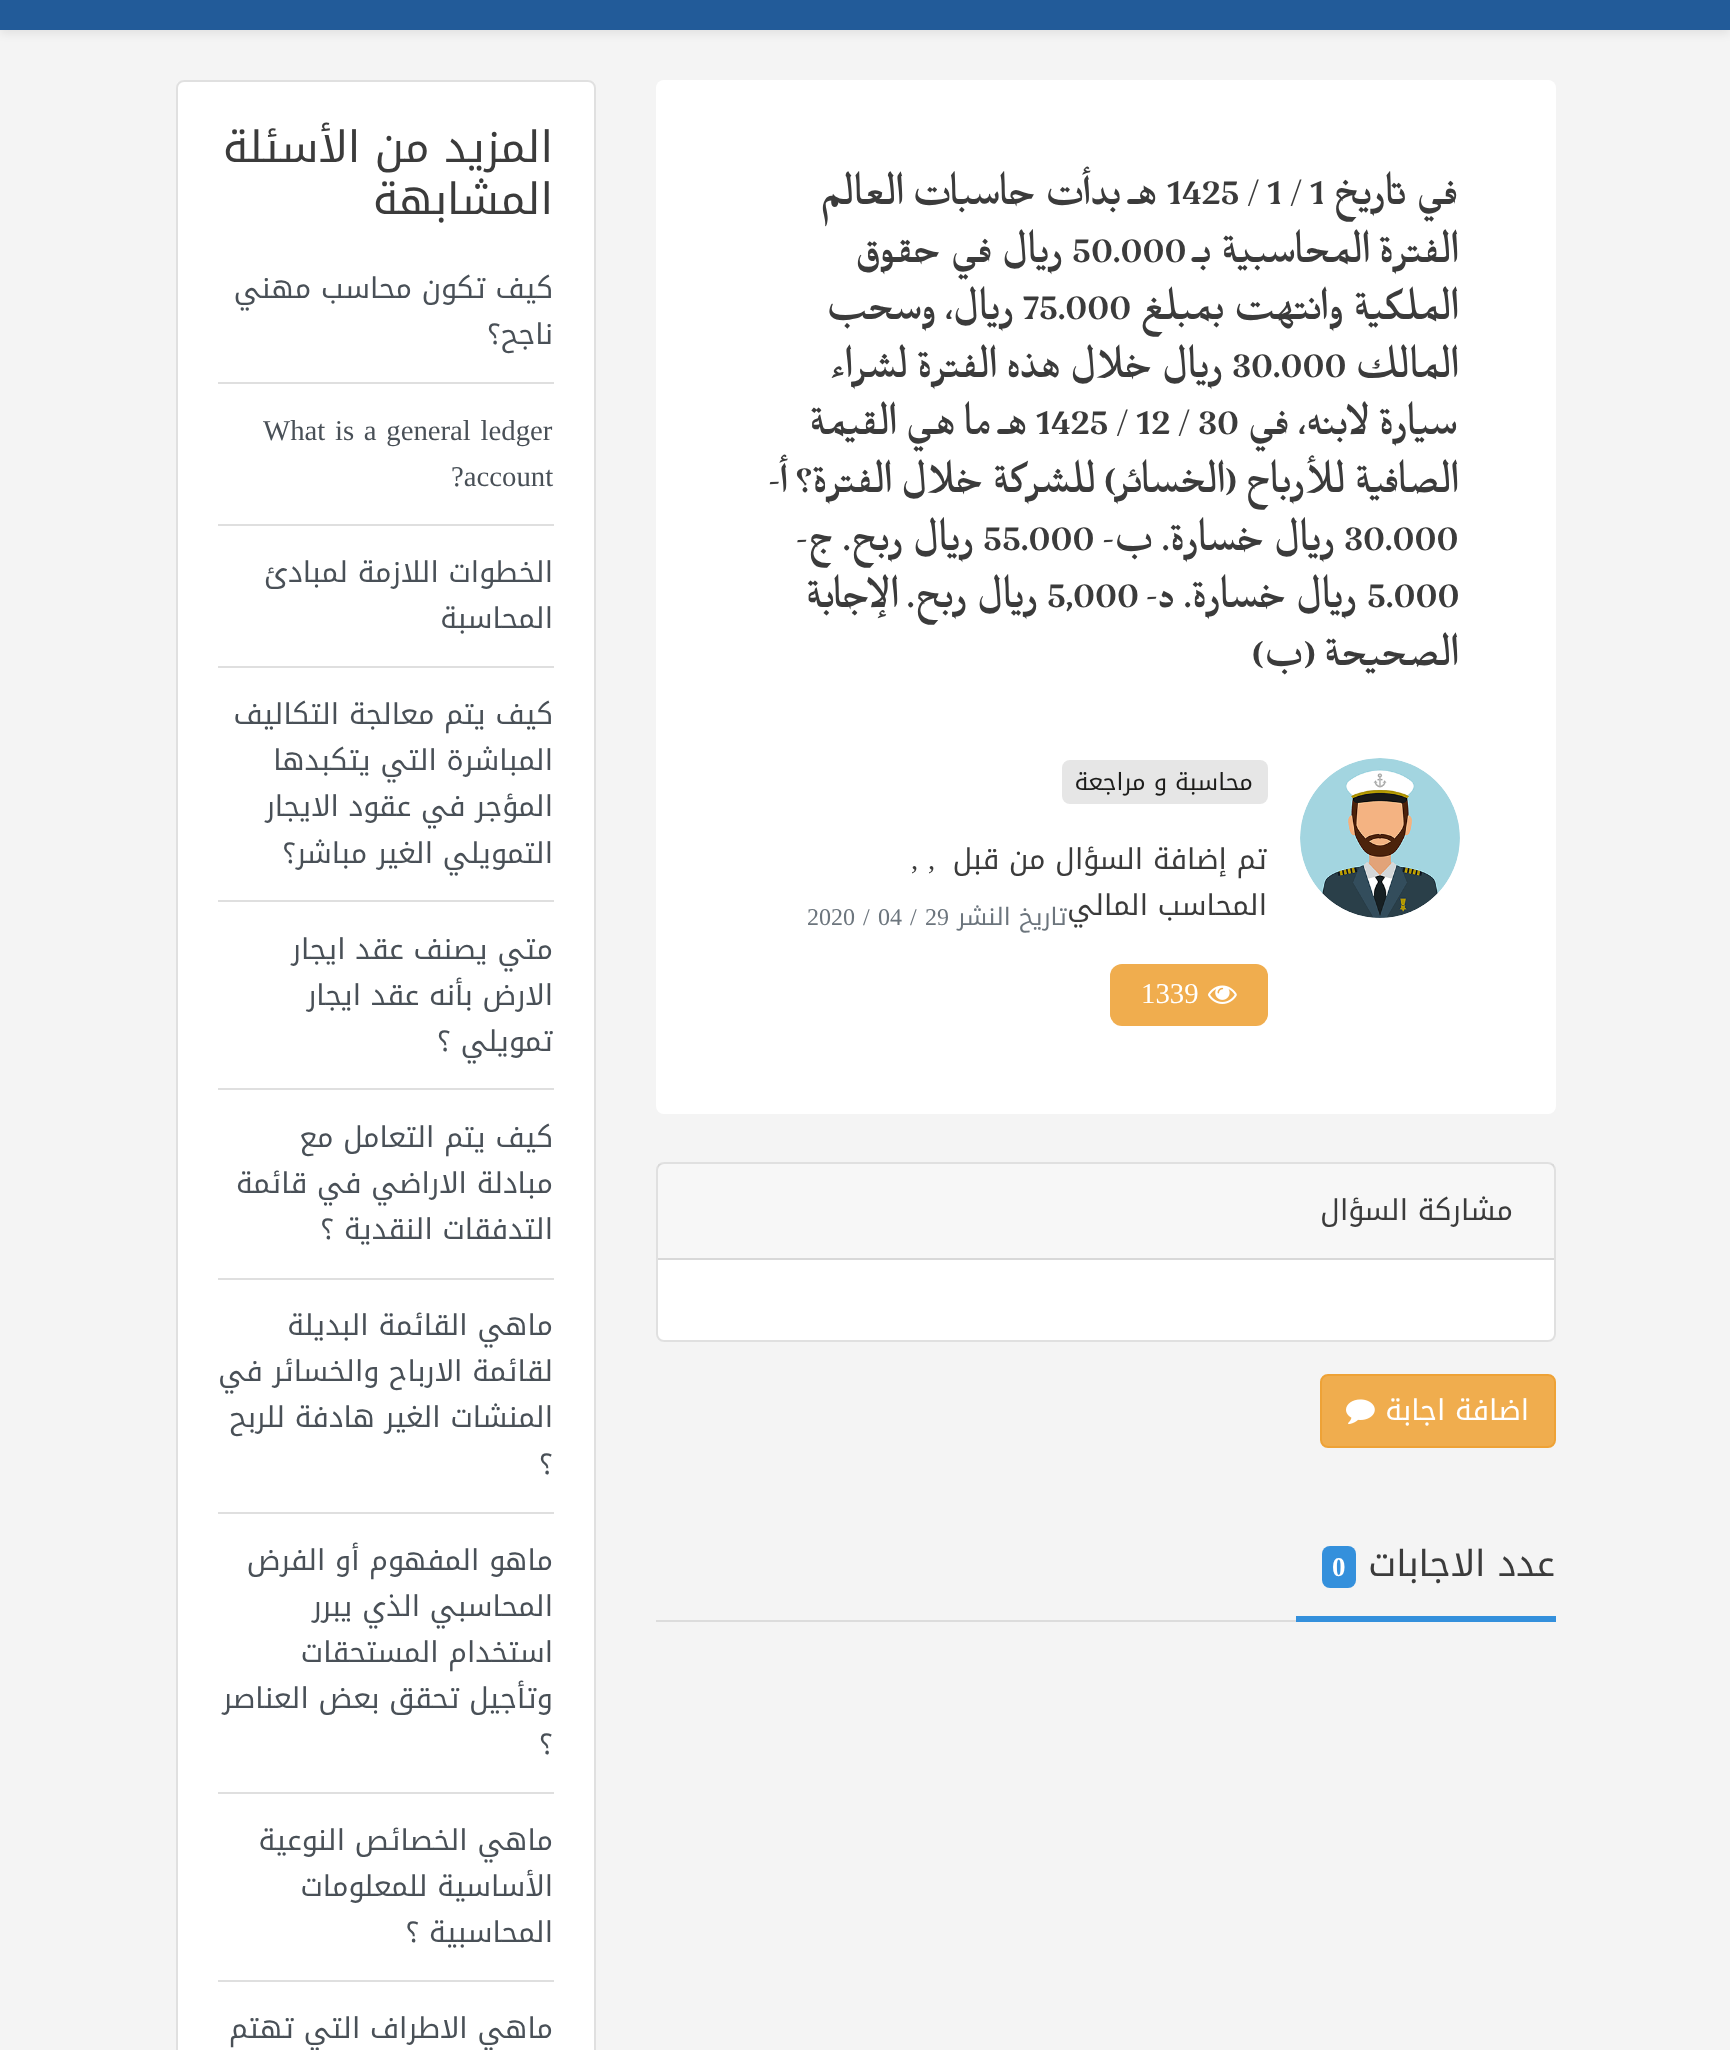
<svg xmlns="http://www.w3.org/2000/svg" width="1730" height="2050">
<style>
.a{font:48px Katibeh;direction:rtl;fill:#3b3b3b}
.b{font:48px Katibeh;fill:#3b3b3b}
.c{font:23.75px Noto Kufi Arabic;direction:rtl;fill:#1d1d1b}
.d{font:28.75px Noto Kufi Arabic;direction:rtl;fill:#3b3b3b}
.e{font:28.75px Liberation Serif;fill:#3b3b3b}
.f{font:24px Noto Kufi Arabic;direction:rtl;fill:#6c757d}
.g{font:24px Liberation Serif;fill:#6c757d}
.h{font:28.75px Liberation Serif;fill:#fff}
.i{font:28.75px Noto Kufi Arabic;direction:rtl;fill:#fff}
.j{font:36px Noto Kufi Arabic;direction:rtl;fill:#3b3b3b}
.k{font:bold 27px Liberation Serif;fill:#fff}
.l{font:43.25px Noto Kufi Arabic;direction:rtl;fill:#3b3b3b}
.m{font:28.75px Noto Kufi Arabic;direction:rtl;fill:#495057}
.n{font:28.75px Liberation Serif;fill:#495057}
</style>
<rect width="100%" height="100%" fill="#f4f4f4"/>
<path fill="#00000012" filter="blur(4px)" d="M0 -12h1730v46H0z"/>
<path fill="#225b99" d="M0 0h1730v30H0z"/>
<rect fill="#fff" x="656" y="80" width="900" height="1034" rx="8"/>
<image href="1.png" x="1300" y="758" width="160" height="160"/>
<rect fill="#e6e6e6" x="1062" y="760" width="206" height="44" rx="8"/>
<rect fill="#f0ad4e" x="1110" y="964" width="158" height="62" rx="12"/>
<image href="2.png" x="1208" y="985" width="29" height="19"/>
<rect fill="#fff" x="656" y="1162" width="900" height="180" rx="8"/>
<rect fill="none" stroke="#0000001f" stroke-width="2" x="657" y="1163" width="898" height="178" rx="7"/>
<path fill="#00000008" d="M658 1164h896v94H658z"/>
<path fill="#d8d8d8" d="M658 1258h896v2H658z"/>
<rect fill="#f0ad4e" stroke="#eea236" stroke-width="2" x="1321" y="1375" width="234" height="72" rx="7"/>
<image href="3.png" x="1346" y="1399" width="29" height="26"/>
<rect fill="#3490dc" x="1322" y="1546" width="34" height="42" rx="8"/>
<path fill="#3490dc" d="M1296 1616h260v6H1296z"/>
<path fill="#dcdcdc" d="M656 1620h640v2H656z"/>
<rect fill="#fff" x="176" y="80" width="420" height="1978" rx="8"/>
<rect fill="none" stroke="#0000001f" stroke-width="2" x="177" y="81" width="418" height="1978" rx="7"/>
<path fill="#dfdfdf" d="M218 382h336v2H218z"/>
<path fill="#dfdfdf" d="M218 524h336v2H218z"/>
<path fill="#dfdfdf" d="M218 666h336v2H218z"/>
<path fill="#dfdfdf" d="M218 900h336v2H218z"/>
<path fill="#dfdfdf" d="M218 1088h336v2H218z"/>
<path fill="#dfdfdf" d="M218 1278h336v2H218z"/>
<path fill="#dfdfdf" d="M218 1512h336v2H218z"/>
<path fill="#dfdfdf" d="M218 1792h336v2H218z"/>
<path fill="#dfdfdf" d="M218 1980h336v2H218z"/>
<text class="a" x="1459" y="204">في تاريخ</text>
<text class="b" x="1167" y="204">1425 / 1 / 1</text>
<text class="a" x="1158" y="204">هـ بدأت حاسبات العالم</text>
<text class="a" x="1459" y="262">الفترة المحاسبية بـ</text>
<text class="b" x="1072" y="262">50.000</text>
<text class="a" x="1064" y="262">ريال في حقوق</text>
<text class="a" x="1459" y="319">الملكية وانتهت بمبلغ</text>
<text class="b" x="1023" y="319">75.000</text>
<text class="a" x="1015" y="319">ريال، وسحب</text>
<text class="a" x="1459" y="377">المالك</text>
<text class="b" x="1232" y="377">30.000</text>
<text class="a" x="1224" y="377">ريال خلال هذه الفترة لشراء</text>
<text class="a" x="1459" y="434">سيارة لابنه، في</text>
<text class="b" x="1036" y="434">1425 / 12 / 30</text>
<text class="a" x="1028" y="434">هـ ما هي القيمة</text>
<text class="a" x="1459" y="492">الصافية للأرباح (الخسائر) للشركة خلال الفترة؟ أ‌-</text>
<text class="b" x="1344" y="550">30.000</text>
<text class="a" x="1336" y="550">ريال خسارة. ب‌-</text>
<text class="b" x="983" y="550">55.000</text>
<text class="a" x="975" y="550">ريال ربح. ج-</text>
<text class="b" x="1367" y="607">5.000</text>
<text class="a" x="1358" y="607">ريال خسارة. د-</text>
<text class="b" x="1047" y="607">5,000</text>
<text class="a" x="1039" y="607">ريال ربح. الإجابة</text>
<text class="a" x="1459" y="665">الصحيحة (ب)</text>
<text class="c" x="1253" y="790">محاسبة و مراجعة</text>
<text class="d" x="1267" y="869">تم إضافة السؤال من قبل</text>
<text class="e" x="928" y="869">,</text>
<text class="e" x="911" y="869">,</text>
<text class="d" x="1267" y="915">المحاسب المالي</text>
<text class="f" x="1067" y="925">تاريخ النشر</text>
<text class="g" x="925" y="925">29</text>
<text class="g" x="910" y="925">/</text>
<text class="g" x="878" y="925">04</text>
<text class="g" x="863" y="925">/</text>
<text class="g" x="807" y="925">2020</text>
<text class="h" x="1141" y="1003">1339</text>
<text class="d" x="1513" y="1220">مشاركة السؤال</text>
<text class="i" x="1529" y="1420">اضافة اجابة</text>
<text class="j" x="1555" y="1576">عدد الاجابات</text>
<text class="k" x="1332" y="1576">0</text>
<text class="l" x="553" y="162">المزيد من الأسئلة</text>
<text class="l" x="553" y="214">المشابهة</text>
<text class="m" x="553" y="298">كيف تكون محاسب مهني</text>
<text class="m" x="553" y="344">ناجح؟</text>
<text class="n" x="263" y="440" word-spacing="2.5">What is a general ledger</text>
<text class="n" x="451" y="486">?account</text>
<text class="m" x="553" y="582">الخطوات اللازمة لمبادئ</text>
<text class="m" x="553" y="628">المحاسبة</text>
<text class="m" x="553" y="724">كيف يتم معالجة التكاليف</text>
<text class="m" x="553" y="770">المباشرة التي يتكبدها</text>
<text class="m" x="553" y="816">المؤجر في عقود الايجار</text>
<text class="m" x="553" y="863">التمويلي الغير مباشر؟</text>
<text class="m" x="553" y="959">متي يصنف عقد ايجار</text>
<text class="m" x="553" y="1005">الارض بأنه عقد ايجار</text>
<text class="m" x="553" y="1051">تمويلي ؟</text>
<text class="m" x="553" y="1147">كيف يتم التعامل مع</text>
<text class="m" x="553" y="1193">مبادلة الاراضي في قائمة</text>
<text class="m" x="553" y="1239">التدفقات النقدية ؟</text>
<text class="m" x="553" y="1335">ماهي القائمة البديلة</text>
<text class="m" x="553" y="1381">لقائمة الارباح والخسائر في</text>
<text class="m" x="553" y="1427">المنشات الغير هادفة للربح</text>
<text class="m" x="553" y="1474">؟</text>
<text class="m" x="553" y="1570">ماهو المفهوم أو الفرض</text>
<text class="m" x="553" y="1616">المحاسبي الذي يبرر</text>
<text class="m" x="553" y="1662">استخدام المستحقات</text>
<text class="m" x="553" y="1708">وتأجيل تحقق بعض العناصر</text>
<text class="m" x="553" y="1754">؟</text>
<text class="m" x="553" y="1850">ماهي الخصائص النوعية</text>
<text class="m" x="553" y="1896">الأساسية للمعلومات</text>
<text class="m" x="553" y="1942">المحاسبية ؟</text>
<text class="m" x="553" y="2038">ماهي الاطراف التي تهتم</text>
</svg>
